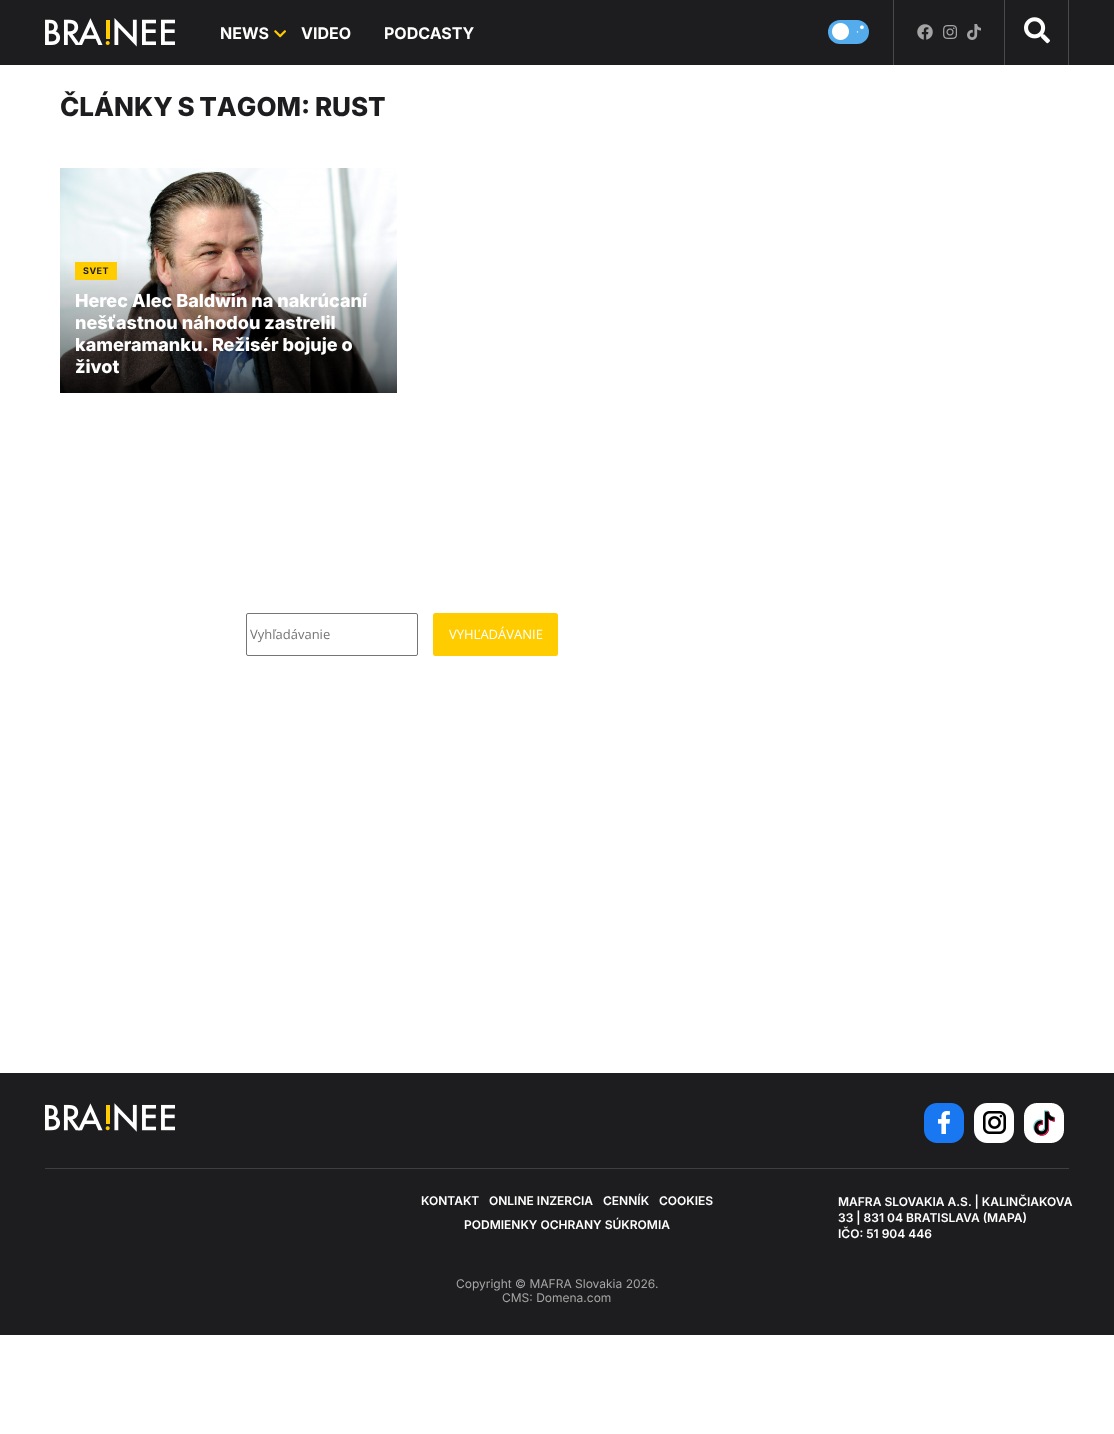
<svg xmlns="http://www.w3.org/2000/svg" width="1114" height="1434">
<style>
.a{font:bold 16px Inter;fill:#fff}
.b{font:800 26px Inter;fill:#1d1d1f}
.c{font:bold 9px Inter;letter-spacing:0.5px;fill:#1d1d1f}
.d{font:800 18px Inter;fill:#fff}
.e{font:13px Open Sans;fill:#757575}
.f{font:13px Open Sans;fill:#fff}
.g{font:600 12px Inter;fill:#fff}
.h{font:12px Inter;fill:#a5a5a5}
</style>
<rect width="100%" height="100%" fill="#fff"/>
<path fill="#1d1d1f" d="M0 0h1114v65H0z"/>
<image href="1.png" x="45" y="18" width="130" height="29"/>
<image href="2.png" x="274" y="30" width="12" height="8"/>
<rect fill="#55aced" x="828" y="20" width="41" height="24" rx="12"/>
<image href="3.png" x="832" y="23" width="32" height="17"/>
<path fill="#49494b" d="M893 0h1v65H893z"/>
<image href="4.png" x="917" y="24" width="16" height="16"/>
<image href="5.png" x="943" y="25" width="14" height="14"/>
<image href="6.png" x="967" y="24" width="14" height="16"/>
<path fill="#49494b" d="M1068 0h1v65H1068z"/>
<path fill="#49494b" d="M1004 0h1v65H1004z"/>
<image href="7.png" x="1024" y="17" width="26" height="27"/>
<image href="8.png" x="60" y="168" width="337" height="225"/>
<path fill="#fc0" d="M75 262h42v18H75z"/>
<rect fill="none" stroke="#767676" x="246.5" y="613.5" width="171" height="42" rx="1.5"/>
<rect fill="#fc0" x="433" y="613" width="125" height="43" rx="2.5"/>
<path fill="#1d1d1f" d="M0 1073h1114v262H0z"/>
<image href="9.png" x="45" y="1103" width="130" height="29"/>
<image href="10.png" x="924" y="1103" width="40" height="40"/>
<image href="11.png" x="974" y="1103" width="40" height="40"/>
<image href="12.png" x="1024" y="1103" width="40" height="40"/>
<path fill="#3f3f41" d="M45 1168h1024v1H45z"/>
<text class="a" x="220" y="39">NEWS</text>
<text class="a" x="301" y="39">VIDEO</text>
<text class="a" x="384" y="39">PODCASTY</text>
<text class="b" x="60" y="116" word-spacing="-1">ČLÁNKY S TAGOM: RUST</text>
<text class="c" x="83" y="274">SVET</text>
<text class="d" x="75" y="307">Herec Alec Baldwin na nakrúcaní</text>
<text class="d" x="75" y="329">nešťastnou náhodou zastrelil</text>
<text class="d" x="75" y="351">kameramanku. Režisér bojuje o</text>
<text class="d" x="75" y="373">život</text>
<text class="e" x="250" y="639">Vyhľadávanie</text>
<text class="f" x="449" y="639">VYHĽADÁVANIE</text>
<text class="g" x="421" y="1205">KONTAKT</text>
<text class="g" x="489" y="1205">ONLINE INZERCIA</text>
<text class="g" x="603" y="1205">CENNÍK</text>
<text class="g" x="659" y="1205">COOKIES</text>
<text class="g" x="464" y="1229">PODMIENKY OCHRANY SÚKROMIA</text>
<text class="g" x="838" y="1206">MAFRA SLOVAKIA A.S. | KALINČIAKOVA</text>
<text class="g" x="838" y="1222">33 | 831 04 BRATISLAVA (MAPA)</text>
<text class="g" x="838" y="1238">IČO: 51 904 446</text>
<text class="h" x="456" y="1288">Copyright © MAFRA Slovakia 2026.</text>
<text class="h" x="502" y="1302">CMS: Domena.com</text>
</svg>
